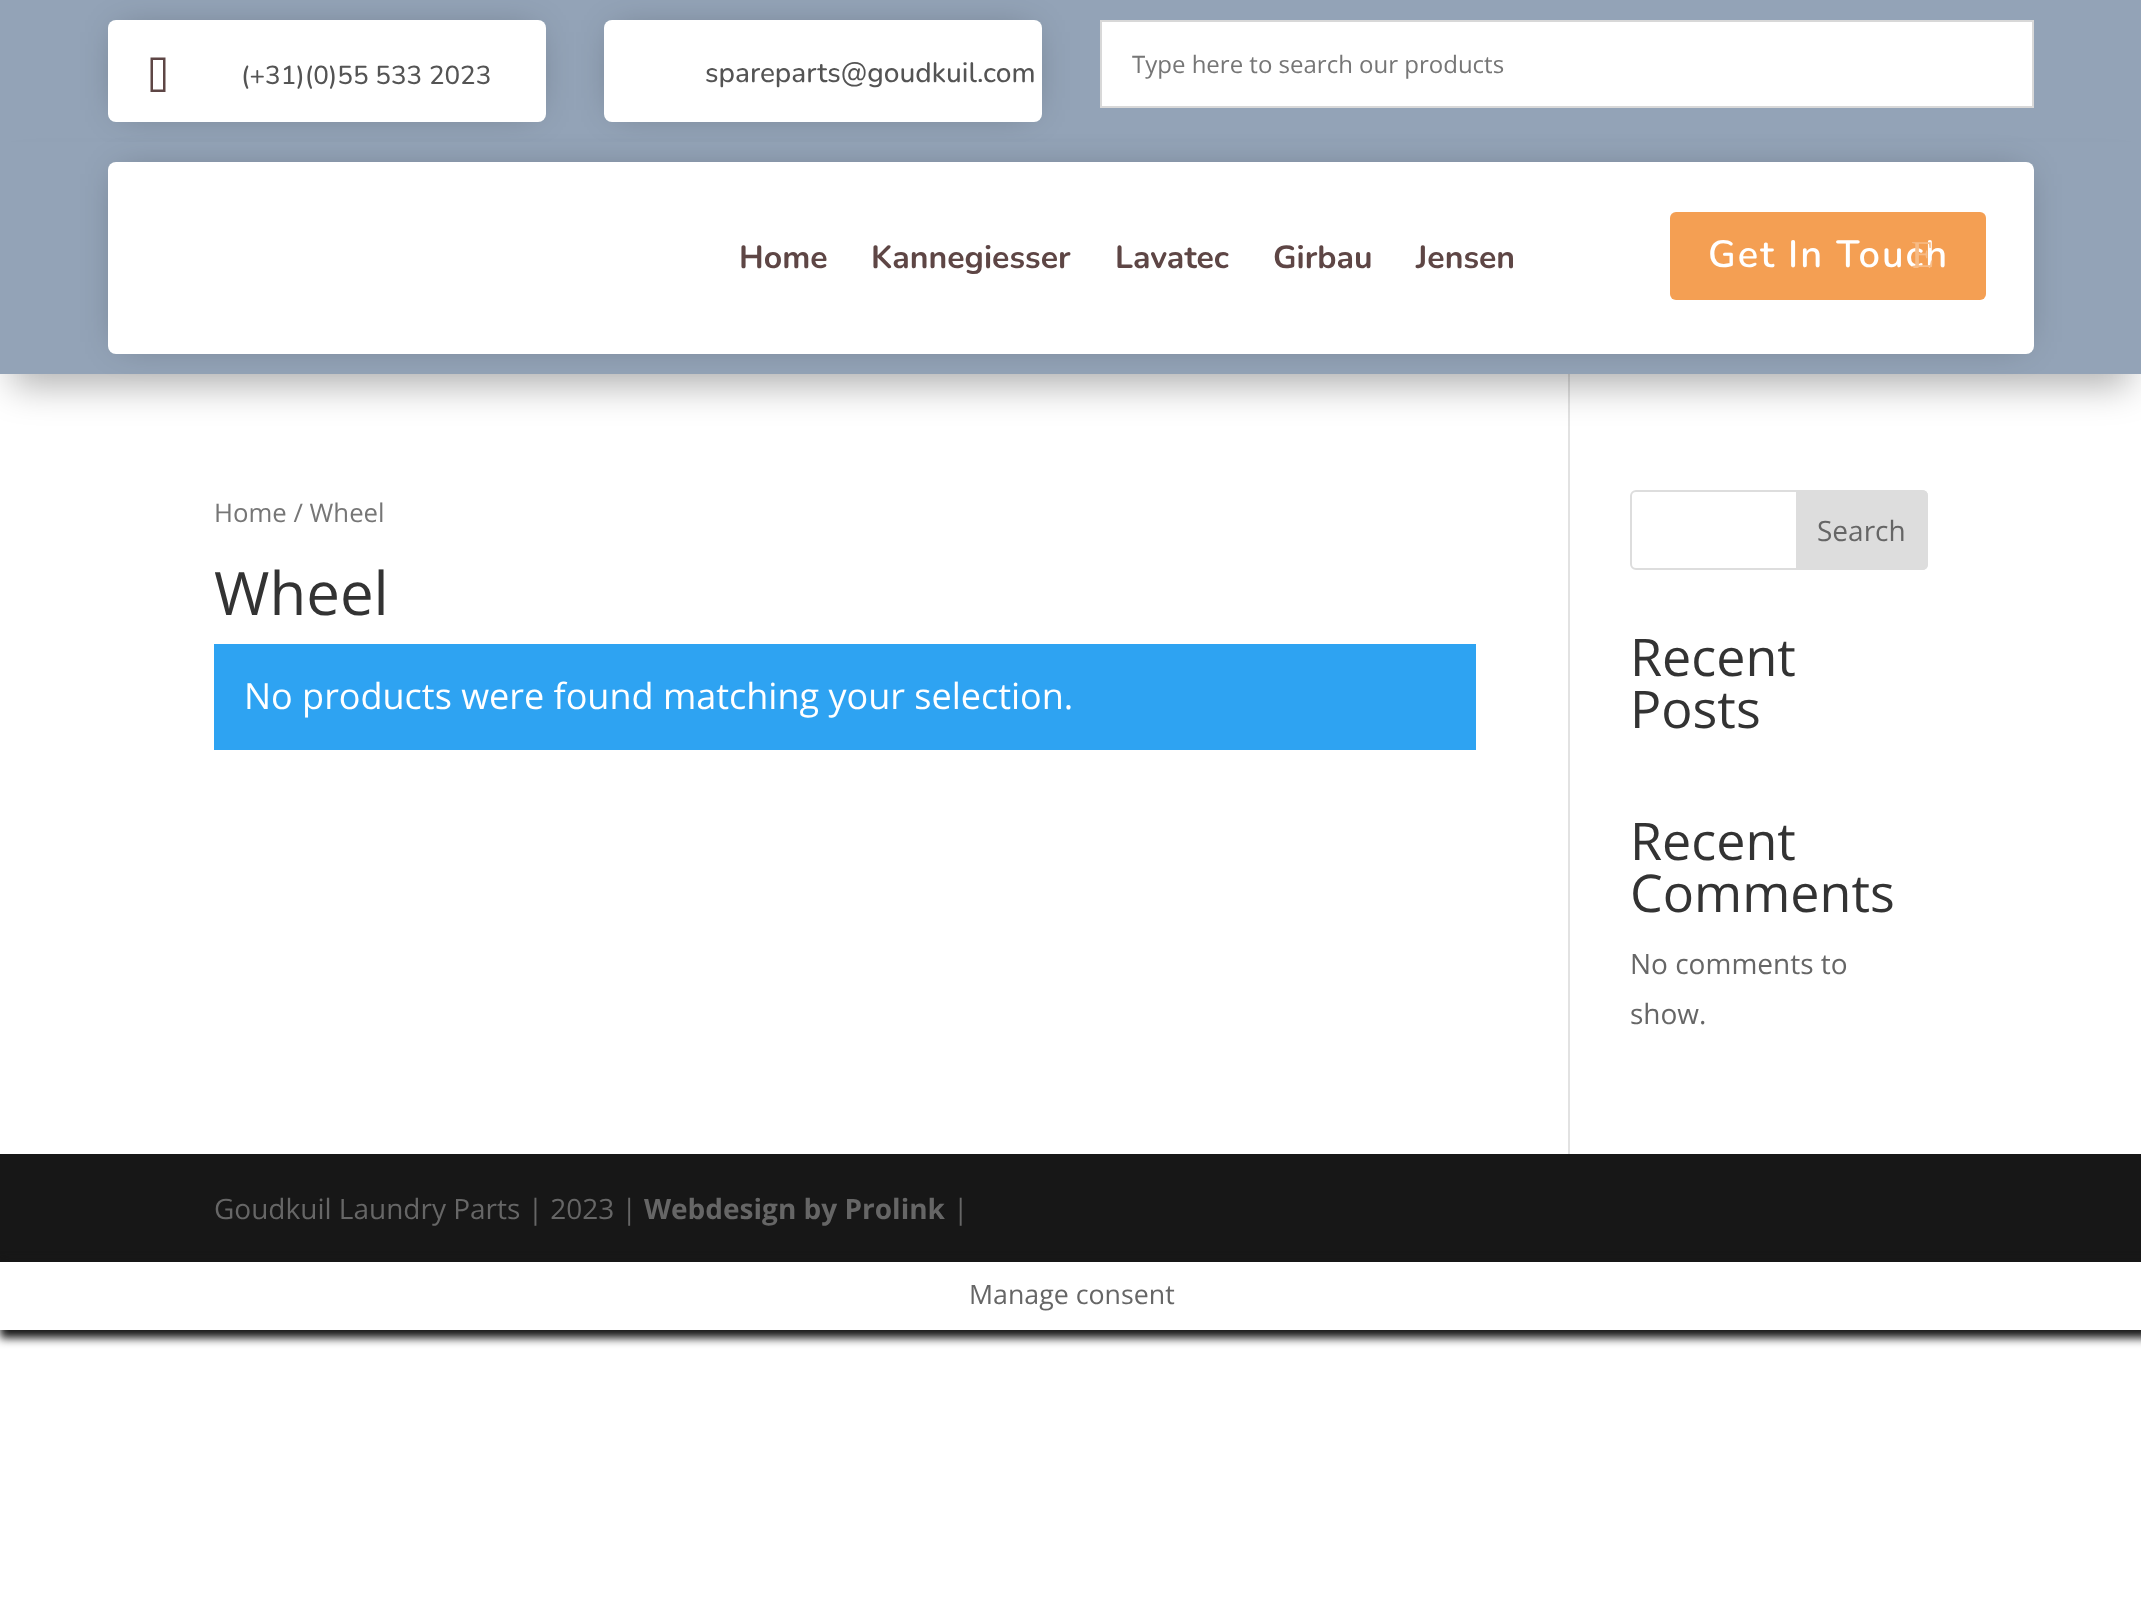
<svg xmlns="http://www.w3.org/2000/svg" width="2141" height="1612">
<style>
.a{font:200 26px Nunito;fill:#545454}
.b{font:200 28px Nunito;fill:#545454}
.c{font:24px Open Sans;fill:#767676}
.d{font:200 32px 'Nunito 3';fill:#5e4645}
.e{font:200 38px 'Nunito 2';letter-spacing:2px;fill:#fff}
.f{font:38px Liberation Serif;letter-spacing:2px;fill:#f7bc87}
.g{font:25.75px Open Sans;fill:#767676}
.h{font:60px Open Sans;fill:#333}
.i{font:36px Open Sans;fill:#fff}
.j{font:28px Open Sans;fill:#666}
.k{font:52px Open Sans;fill:#333}
.l{font:bold 28px Open Sans;fill:#666}
.m{font:26.75px Open Sans;fill:#666}
</style>
<defs>
<clipPath id="clip1"><path d="M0 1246h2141v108h-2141zm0 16h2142v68h-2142z" clip-rule="evenodd"/></clipPath>
</defs>
<rect width="100%" height="100%" fill="#fff"/>
<path fill="#93a3b7" d="M0 0h2141v142H0z"/>
<path fill="#0000004d" filter="blur(18px)" d="M120 32h414v78H120z"/>
<rect fill="#fff" x="108" y="20" width="438" height="102" rx="8"/>
<path fill="#5e4645" d="M153 89.5v-29.5h10v29.5zm-2.5 2.5h15v-34.5h-15z"/>
<path fill="#0000004d" filter="blur(18px)" d="M616 32h414v78H616z"/>
<rect fill="#fff" x="604" y="20" width="438" height="102" rx="8"/>
<path fill="#fff" stroke="#d8d8d8" stroke-width="2" d="M1101 21h932v86H1101z"/>
<path fill="#e2e2e2" d="M1568 374h2v780H1568z"/>
<path fill="#0000004d" filter="blur(18px)" d="M12 178h2118v208H12z"/>
<path fill="#93a3b7" d="M0 142h2141v232H0z"/>
<path fill="#0000004d" filter="blur(18px)" d="M120 174h1902v168H120z"/>
<rect fill="#fff" x="108" y="162" width="1926" height="192" rx="8"/>
<rect fill="#f49f53" x="1670" y="212" width="316" height="88" rx="6"/>
<path fill="#2ea3f2" d="M214 644h1262v106H214z"/>
<rect fill="none" stroke="#ddd" stroke-width="2" x="1631" y="491" width="296" height="78" rx="5"/>
<path fill="#ddd" stroke="#ddd" stroke-width="2" d="M1797 491h125c3 0 5 2 5 5v68c0 3-2 5-5 5h-125z"/>
<path fill="#171717" d="M0 1154h2141v108H0z"/>
<g clip-path="url(#clip1)">
<path fill="#161616" filter="blur(5px)" d="M0 1262h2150v76H0z"/>
</g>
<text class="a" x="241" y="84">(+31)(0)55 533 2023</text>
<text class="b" x="705" y="82">spareparts@goudkuil.com</text>
<text class="c" x="1132" y="73">Type here to search our products</text>
<text class="d" x="739" y="268">Home</text>
<text class="d" x="871" y="268">Kannegiesser</text>
<text class="d" x="1115" y="268">Lavatec</text>
<text class="d" x="1273" y="268">Girbau</text>
<text class="d" x="1416" y="268">Jensen</text>
<text class="e" x="1708" y="267">Get In Touch</text>
<text class="f" x="1911" y="267">E</text>
<text class="g" x="214" y="522">Home / Wheel</text>
<text class="h" x="214" y="615">Wheel</text>
<text class="i" x="244" y="709">No products were found matching your selection.</text>
<text class="j" x="1817" y="541">Search</text>
<text class="k" x="1630" y="676">Recent</text>
<text class="k" x="1630" y="728">Posts</text>
<text class="k" x="1630" y="860">Recent</text>
<text class="k" x="1630" y="912">Comments</text>
<text class="j" x="1630" y="974">No comments to</text>
<text class="j" x="1630" y="1024">show.</text>
<text class="j" x="214" y="1219">Goudkuil Laundry Parts | 2023 |</text>
<text class="l" x="644" y="1219">Webdesign by Prolink</text>
<text class="j" x="953" y="1219">|</text>
<text class="m" x="969" y="1304">Manage consent</text>
</svg>
